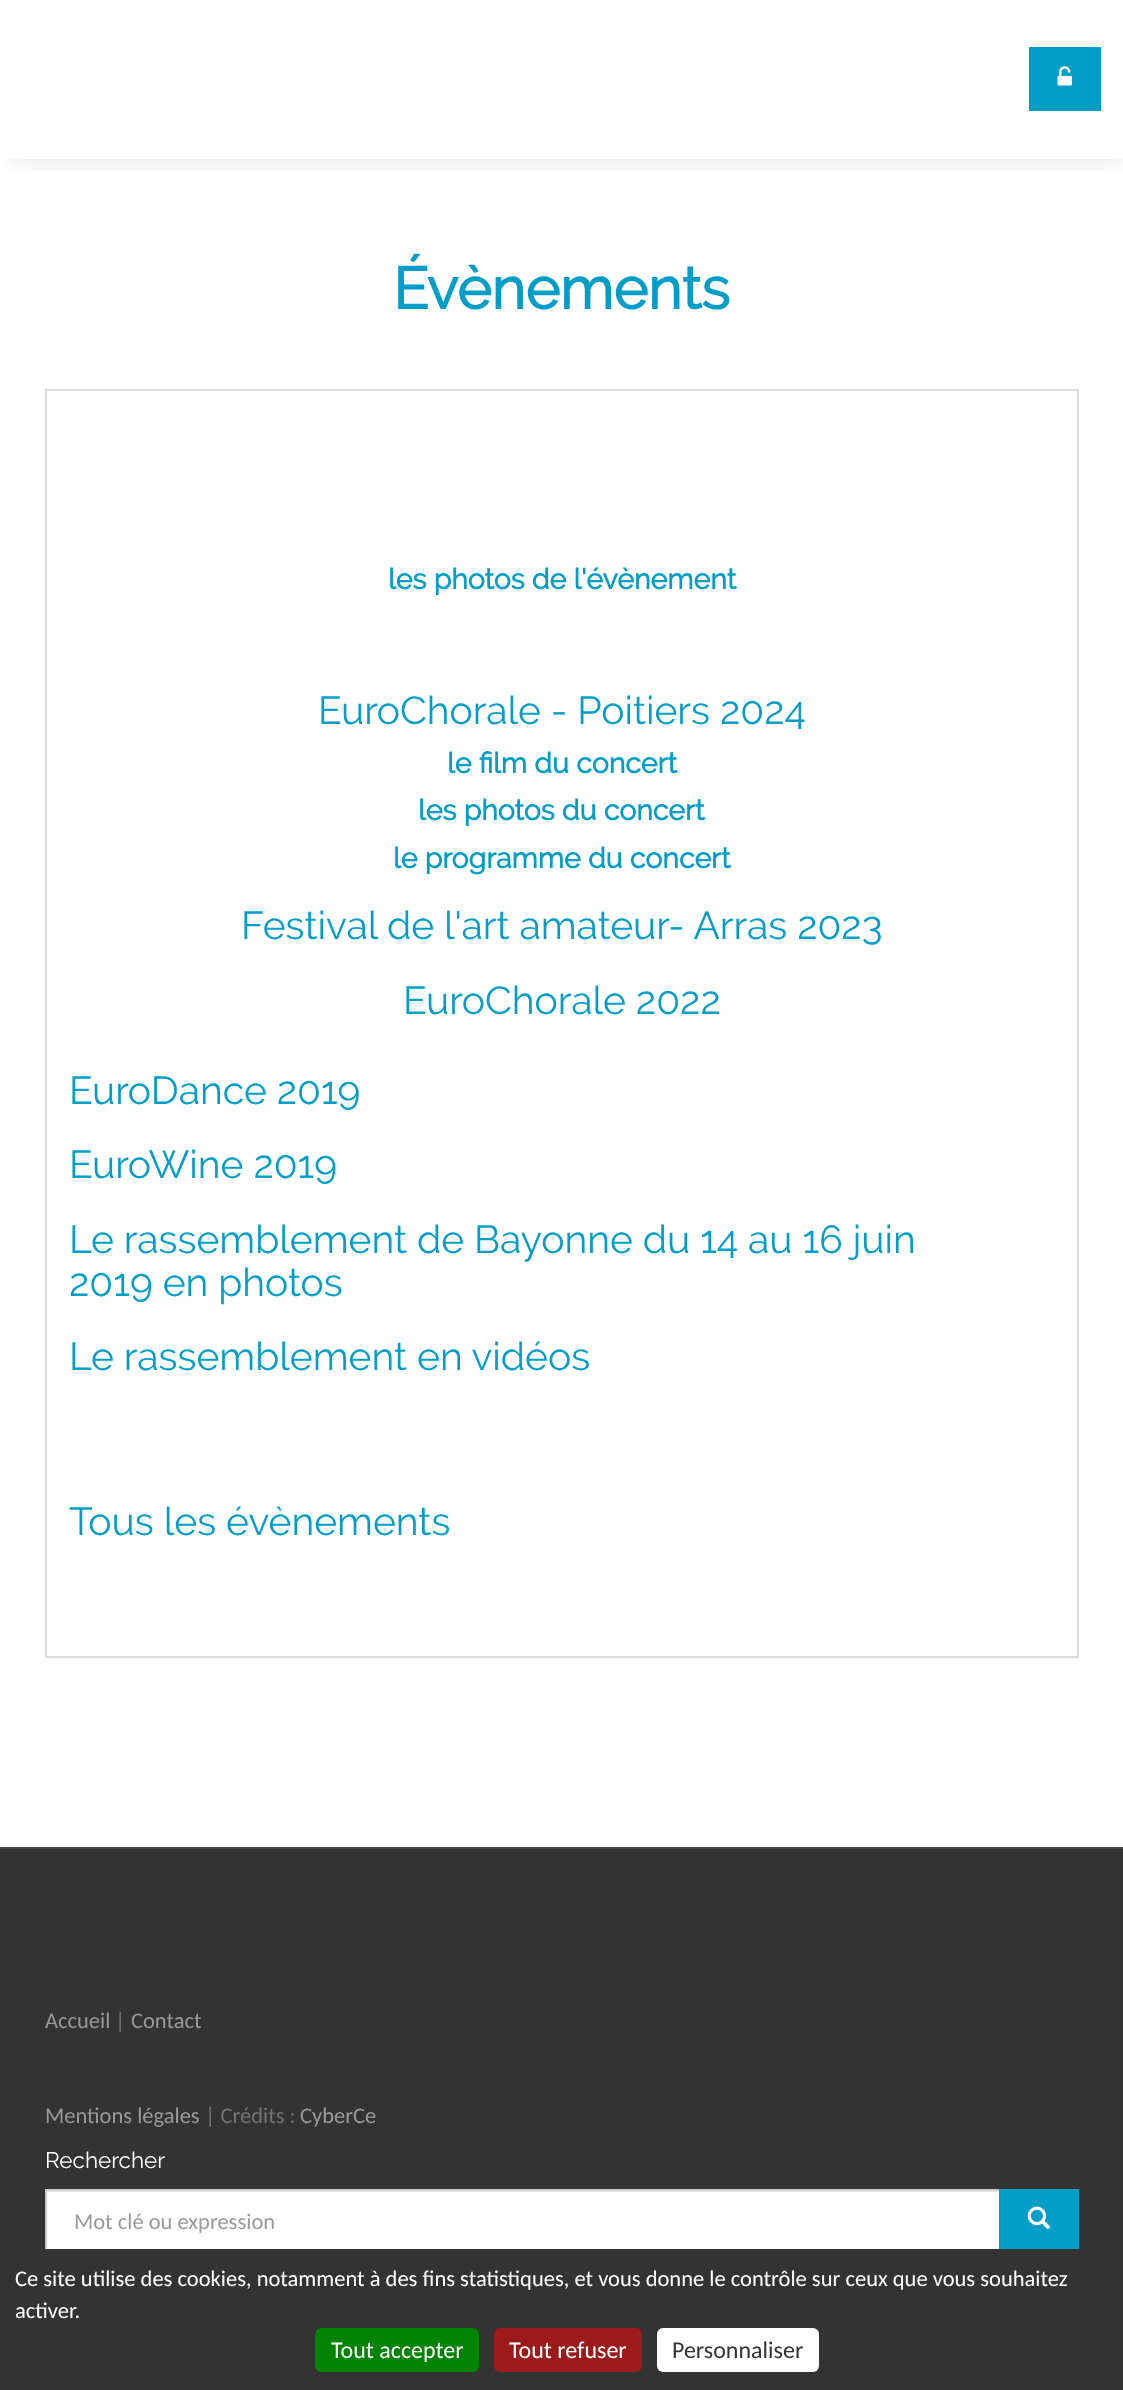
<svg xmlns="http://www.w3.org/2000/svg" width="1123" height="2390">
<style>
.a{font:bold 58.5px Raleway;fill:#029ec8}
.b{font:bold 28.5px Raleway;fill:#029ec8}
.c{font:39px Raleway;fill:#029ec8}
.d{font:22.5px Carlito;fill:#999}
.e{font:22.5px Carlito;fill:#737373}
.f{font:22.5px Raleway;fill:#fff}
.g{font:22.5px Carlito;fill:#fff}
.h{font:24px Carlito;fill:#fff}
.i{font:24px Carlito;fill:#333}
</style>
<defs>
<clipPath id="clip1"><path d="M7 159h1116v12H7z"/></clipPath>
</defs>
<rect width="100%" height="100%" fill="#fff"/>
<g clip-path="url(#clip1)">
<path fill="#00000033" filter="blur(15px)" d="M14 8h1108v144H14z"/>
</g>
<path fill="#029ec8" d="M1029 47h72v64H1029z"/>
<image href="1.png" x="1057" y="66" width="15" height="20"/>
<path fill="#0000000d" filter="blur(1px)" d="M45 390h1034v1269H45z"/>
<path fill="#fff" stroke="#ddd" stroke-width="2" d="M46 390h1032v1267H46z"/>
<path fill="#333" d="M0 1849h1123v400H0z"/>
<path fill="#474747" d="M0 1847h1123v2H0z"/>
<path fill="#fff" d="M47 2192h952v57H47z"/>
<path fill="#ececec" d="M47 2191h952v1H47z"/>
<path fill="none" stroke="#ccc" stroke-width="2" d="M46 2190h954v62H46z"/>
<path fill="#029ec8" d="M999 2189h80v60H999z"/>
<image href="2.png" x="1027" y="2206" width="24" height="24"/>
<path fill="#333" d="M0 2249h1123v141H0z"/>
<rect fill="#008300" x="315" y="2328" width="164" height="44" rx="6"/>
<rect fill="#9c1a1a" x="494" y="2328" width="148" height="44" rx="6"/>
<rect fill="#fff" x="657" y="2328" width="162" height="44" rx="6"/>
<text class="a" x="393" y="309">Évènements</text>
<text class="b" x="388" y="589">les photos de l'évènement</text>
<text class="c" x="318" y="724">EuroChorale - Poitiers 2024</text>
<text class="b" x="447" y="773">le film du concert</text>
<text class="b" x="418" y="820">les photos du concert</text>
<text class="b" x="393" y="868">le programme du concert</text>
<text class="c" x="241" y="939">Festival de l'art amateur- Arras 2023</text>
<text class="c" x="403" y="1014">EuroChorale 2022</text>
<text class="c" x="69" y="1104">EuroDance 2019</text>
<text class="c" x="69" y="1178">EuroWine 2019</text>
<text class="c" x="69" y="1253">Le rassemblement de Bayonne du 14 au 16 juin</text>
<text class="c" x="69" y="1296">2019 en photos</text>
<text class="c" x="69" y="1370">Le rassemblement en vidéos</text>
<text class="c" x="69" y="1535">Tous les évènements</text>
<text class="d" x="45" y="2028">Accueil</text>
<text class="e" x="115" y="2028">|</text>
<text class="d" x="131" y="2028">Contact</text>
<text class="d" x="45" y="2123">Mentions légales</text>
<text class="e" x="205" y="2123">| Crédits :</text>
<text class="d" x="300" y="2123">CyberCe</text>
<text class="f" x="45" y="2168">Rechercher</text>
<text class="d" x="74" y="2229">Mot clé ou expression</text>
<text class="g" x="15" y="2286">Ce site utilise des cookies, notamment à des fins statistiques, et vous donne le contrôle sur ceux que vous souhaitez</text>
<text class="g" x="15" y="2318">activer.</text>
<text class="h" x="331" y="2358">Tout accepter</text>
<text class="h" x="509" y="2358">Tout refuser</text>
<text class="i" x="672" y="2358">Personnaliser</text>
</svg>
